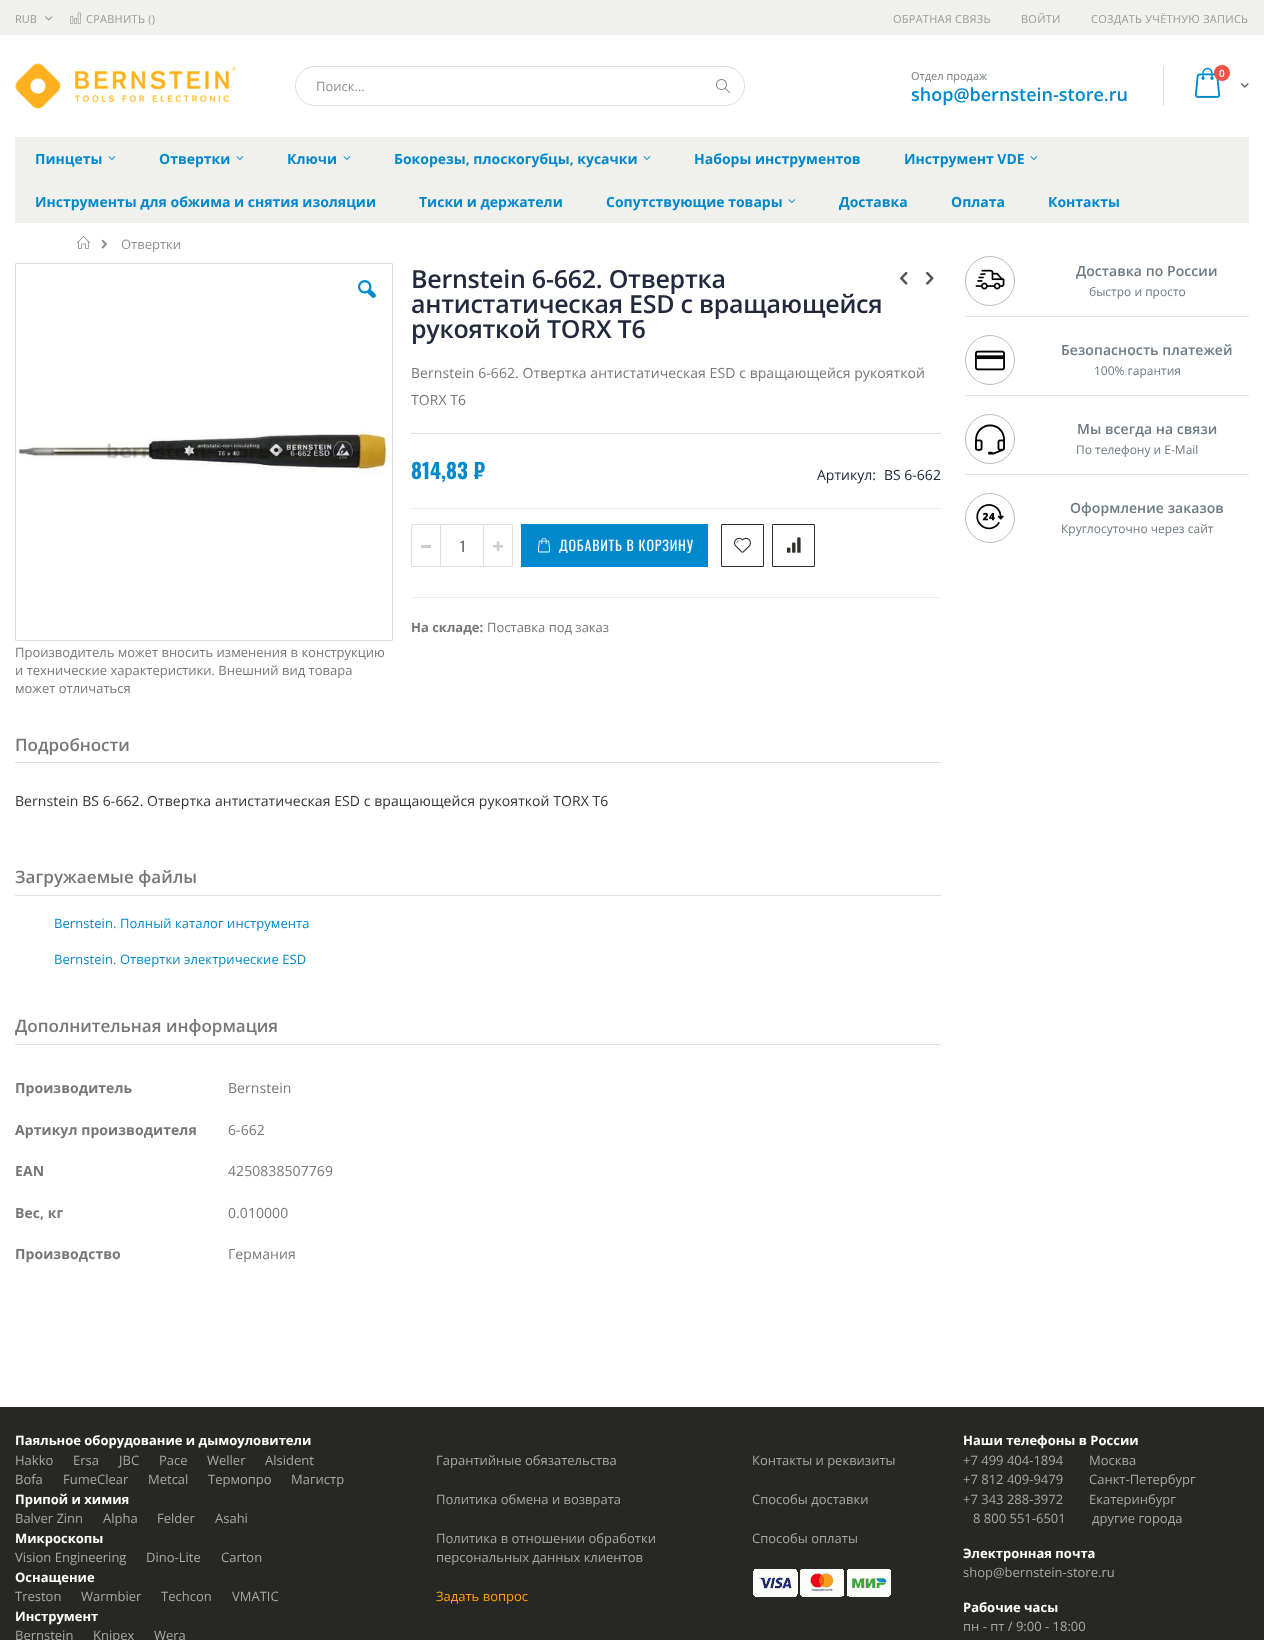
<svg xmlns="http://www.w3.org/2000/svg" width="1264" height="1640">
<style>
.a{font:11px Open Sans;fill:#999}
.b{font:11px Open Sans;letter-spacing:0.25px;fill:#999}
.c{font:13px Open Sans;fill:#8e8e8e}
.d{font:11px Open Sans;fill:#787d7f}
.e{font:600 18px Open Sans;fill:#08c}
.f{font:600 10px Open Sans;fill:#fff}
.g{font:bold 14px Open Sans;fill:#08c}
.h{font:600 25px Open Sans;letter-spacing:-0.25px;fill:#21293c}
.i{font:14px Open Sans;letter-spacing:0.07px;fill:#777}
.j{font:bold 21px Oswald;fill:#08c}
.k{font:14px Open Sans;fill:#21293c}
.l{font:14px Oswald;fill:#61605a}
.m{font:14px Oswald;letter-spacing:0.75px;fill:#fff}
.n{font:bold 13px Open Sans;fill:#777}
.o{font:13px Open Sans;fill:#777}
.p{font:600 17px Open Sans;fill:#777}
.q{font:14px Open Sans;letter-spacing:0.07px;fill:#333}
.r{font:600 17px Open Sans;letter-spacing:0.07px;fill:#777}
.s{font:13px Open Sans;letter-spacing:0.07px;fill:#08c}
.t{font:bold 14px Open Sans;letter-spacing:0.07px;fill:#777}
.u{font:600 14px Open Sans;letter-spacing:0.07px;fill:#6b7a83}
.v{font:12px Open Sans;fill:#6b7a83}
.w{font:bold 13px Open Sans;fill:#fff}
.x{font:13px Open Sans;fill:#a8a8a8}
.y{font:13px Open Sans;fill:#ffa500}
</style>
<rect width="100%" height="100%" fill="#fff"/>
<path fill="#f0f0ed" d="M0 0h1264v35H0z"/>
<image href="1.png" x="45" y="16" width="8" height="5"/>
<image href="2.png" x="70" y="12" width="11" height="12"/>
<image href="3.png" x="15" y="63" width="222" height="46"/>
<rect fill="none" stroke="#dbe0e2" x="295.5" y="66.5" width="449" height="39" rx="19.5"/>
<image href="4.png" x="716" y="79" width="14" height="14"/>
<path fill="#dde0e2" d="M1163 66h1v40H1163z"/>
<image href="5.png" x="1194" y="67" width="27" height="31"/>
<circle fill="#ed5348" cx="1222" cy="73" r="8"/>
<image href="6.png" x="1241" y="83" width="8" height="5"/>
<path fill="#f0f0ed" d="M15 137h1234v86H15z"/>
<image href="7.png" x="108" y="156" width="8" height="4"/>
<image href="7.png" x="236" y="156" width="8" height="4"/>
<image href="7.png" x="343" y="156" width="8" height="4"/>
<image href="7.png" x="643" y="156" width="8" height="4"/>
<image href="7.png" x="1030" y="156" width="8" height="4"/>
<image href="7.png" x="788" y="199" width="8" height="4"/>
<image href="8.png" x="77" y="236" width="13" height="13"/>
<image href="9.png" x="101" y="239" width="7" height="10"/>
<image href="10.png" x="900" y="271" width="8" height="14"/>
<image href="11.png" x="926" y="271" width="8" height="14"/>
<path fill="#dae2e6" d="M411 433h530v1H411z"/>
<path fill="#ebebeb" d="M411 508h530v1H411z"/>
<path fill="none" stroke="#dae2e6" d="M440.5 524.5h43v42H440.5z"/>
<path fill="none" stroke="#dae2e6" d="M411.5 524.5h29v42H411.5z"/>
<path fill="#ccc" d="M421 545h10v3H421z"/>
<path fill="none" stroke="#dae2e6" d="M483.5 524.5h29v42H483.5z"/>
<image href="12.png" x="493" y="541" width="10" height="10"/>
<path fill="#08c" d="M521 524h187v43H521z"/>
<image href="13.png" x="537" y="537" width="14" height="16"/>
<path fill="none" stroke="#302e2a" d="M721.5 524.5h42v42H721.5z"/>
<image href="14.png" x="734" y="537" width="17" height="16"/>
<path fill="none" stroke="#302e2a" d="M772.5 524.5h42v42H772.5z"/>
<image href="15.png" x="787" y="537" width="14" height="16"/>
<path fill="#ebebeb" d="M411 597h530v1H411z"/>
<path fill="none" stroke="#ddd" d="M15.5 263.5h377v377H15.5z"/>
<image href="16.png" x="358" y="280" width="18" height="18"/>
<image href="17.png" x="18" y="428" width="373" height="48"/>
<path fill="#dae2e6" d="M15 762h926v1H15z"/>
<path fill="#dae2e6" d="M15 895h926v1H15z"/>
<path fill="#dae2e6" d="M15 1044h926v1H15z"/>
<path fill="#dee5e8" d="M965 316h284v1H965z"/>
<circle fill="none" stroke="#bbb" cx="990" cy="281" r="24.5"/>
<image href="18.png" x="975" y="269" width="30" height="21"/>
<path fill="#dee5e8" d="M965 395h284v1H965z"/>
<circle fill="none" stroke="#bbb" cx="990" cy="360" r="24.5"/>
<image href="19.png" x="975" y="350" width="30" height="21"/>
<path fill="#dee5e8" d="M965 474h284v1H965z"/>
<circle fill="none" stroke="#bbb" cx="990" cy="439" r="24.5"/>
<image href="20.png" x="975" y="424" width="30" height="31"/>
<circle fill="none" stroke="#bbb" cx="990" cy="518" r="24.5"/>
<image href="21.png" x="976" y="504" width="28" height="26"/>
<path fill="#272723" d="M0 1407h1264v233H0z"/>
<image href="22.png" x="753" y="1569" width="138" height="28"/>
<text class="a" x="15" y="23">RUB</text>
<text class="b" x="86" y="23">СРАВНИТЬ ()</text>
<text class="b" x="893" y="23">ОБРАТНАЯ СВЯЗЬ</text>
<text class="b" x="1021" y="23">ВОЙТИ</text>
<text class="b" x="1091" y="23">СОЗДАТЬ УЧЁТНУЮ ЗАПИСЬ</text>
<text class="c" x="316" y="91">Поиск...</text>
<text class="d" x="911" y="80">Отдел продаж</text>
<text class="e" x="911" y="101">shop@bernstein-store.ru</text>
<text class="f" x="1219" y="77">0</text>
<text class="g" x="35" y="164">Пинцеты</text>
<text class="g" x="159" y="164">Отвертки</text>
<text class="g" x="287" y="164">Ключи</text>
<text class="g" x="394" y="164">Бокорезы, плоскогубцы, кусачки</text>
<text class="g" x="694" y="164">Наборы инструментов</text>
<text class="g" x="904" y="164">Инструмент VDE</text>
<text class="g" x="35" y="207">Инструменты для обжима и снятия изоляции</text>
<text class="g" x="419" y="207">Тиски и держатели</text>
<text class="g" x="606" y="207">Сопутствующие товары</text>
<text class="g" x="839" y="207">Доставка</text>
<text class="g" x="951" y="207">Оплата</text>
<text class="g" x="1048" y="207">Контакты</text>
<text class="c" x="121" y="249">Отвертки</text>
<text class="h" x="411" y="288">Bernstein 6-662. Отвертка</text>
<text class="h" x="411" y="313">антистатическая ESD с вращающейся</text>
<text class="h" x="411" y="338">рукояткой TORX T6</text>
<text class="i" x="411" y="378">Bernstein 6-662. Отвертка антистатическая ESD с вращающейся рукояткой</text>
<text class="i" x="411" y="405">TORX T6</text>
<text class="j" x="411" y="479">814,83 ₽</text>
<text class="k" x="817" y="480">Артикул:</text>
<text class="k" x="884" y="480">BS 6-662</text>
<text class="l" x="460" y="552">1</text>
<text class="m" x="559" y="551">ДОБАВИТЬ В КОРЗИНУ</text>
<text class="n" x="411" y="632">На складе:</text>
<text class="o" x="487" y="632">Поставка под заказ</text>
<text class="o" x="15" y="657">Производитель может вносить изменения в конструкцию</text>
<text class="o" x="15" y="675">и технические характеристики. Внешний вид товара</text>
<text class="o" x="15" y="693">может отличаться</text>
<text class="p" x="15" y="751">Подробности</text>
<text class="q" x="15" y="806">Bernstein BS 6-662. Отвертка антистатическая ESD с вращающейся рукояткой TORX T6</text>
<text class="r" x="15" y="883">Загружаемые файлы</text>
<text class="s" x="54" y="928">Bernstein. Полный каталог инструмента</text>
<text class="s" x="54" y="964">Bernstein. Отвертки электрические ESD</text>
<text class="p" x="15" y="1032">Дополнительная информация</text>
<text class="t" x="15" y="1093">Производитель</text>
<text class="i" x="228" y="1093">Bernstein</text>
<text class="t" x="15" y="1135">Артикул производителя</text>
<text class="i" x="228" y="1135">6-662</text>
<text class="t" x="15" y="1176">EAN</text>
<text class="i" x="228" y="1176">4250838507769</text>
<text class="t" x="15" y="1218">Вес, кг</text>
<text class="i" x="228" y="1218">0.010000</text>
<text class="t" x="15" y="1259">Производство</text>
<text class="i" x="228" y="1259">Германия</text>
<text class="u" x="1076" y="276">Доставка по России</text>
<text class="v" x="1089" y="296">быстро и просто</text>
<text class="u" x="1061" y="355">Безопасность платежей</text>
<text class="v" x="1094" y="375">100% гарантия</text>
<text class="u" x="1077" y="434">Мы всегда на связи</text>
<text class="v" x="1076" y="454">По телефону и E-Mail</text>
<text class="u" x="1070" y="513">Оформление заказов</text>
<text class="v" x="1061" y="533">Круглосуточно через сайт</text>
<text class="w" x="15" y="1445">Паяльное оборудование и дымоуловители</text>
<text class="x" x="15" y="1465">Hakko</text>
<text class="x" x="73" y="1465">Ersa</text>
<text class="x" x="119" y="1465">JBC</text>
<text class="x" x="159" y="1465">Pace</text>
<text class="x" x="207" y="1465">Weller</text>
<text class="x" x="265" y="1465">Alsident</text>
<text class="x" x="15" y="1484">Bofa</text>
<text class="x" x="63" y="1484">FumeClear</text>
<text class="x" x="148" y="1484">Metcal</text>
<text class="x" x="208" y="1484">Термопро</text>
<text class="x" x="291" y="1484">Магистр</text>
<text class="w" x="15" y="1504">Припой и химия</text>
<text class="x" x="15" y="1523">Balver Zinn</text>
<text class="x" x="103" y="1523">Alpha</text>
<text class="x" x="157" y="1523">Felder</text>
<text class="x" x="215" y="1523">Asahi</text>
<text class="w" x="15" y="1543">Микроскопы</text>
<text class="x" x="15" y="1562">Vision Engineering</text>
<text class="x" x="146" y="1562">Dino-Lite</text>
<text class="x" x="221" y="1562">Carton</text>
<text class="w" x="15" y="1582">Оснащение</text>
<text class="x" x="15" y="1601">Treston</text>
<text class="x" x="81" y="1601">Warmbier</text>
<text class="x" x="161" y="1601">Techcon</text>
<text class="x" x="232" y="1601">VMATIC</text>
<text class="w" x="15" y="1621">Инструмент</text>
<text class="x" x="15" y="1640">Bernstein</text>
<text class="x" x="93" y="1640">Knipex</text>
<text class="x" x="154" y="1640">Wera</text>
<text class="x" x="436" y="1465">Гарантийные обязательства</text>
<text class="x" x="436" y="1504">Политика обмена и возврата</text>
<text class="x" x="436" y="1543">Политика в отношении обработки</text>
<text class="x" x="436" y="1562">персональных данных клиентов</text>
<text class="y" x="436" y="1601">Задать вопрос</text>
<text class="x" x="752" y="1465">Контакты и реквизиты</text>
<text class="x" x="752" y="1504">Способы доставки</text>
<text class="x" x="752" y="1543">Способы оплаты</text>
<text class="w" x="963" y="1445">Наши телефоны в России</text>
<text class="x" x="963" y="1465">+7 499 404-1894</text>
<text class="x" x="1089" y="1465">Москва</text>
<text class="x" x="963" y="1484">+7 812 409-9479</text>
<text class="x" x="1089" y="1484">Санкт-Петербург</text>
<text class="x" x="963" y="1504">+7 343 288-3972</text>
<text class="x" x="1089" y="1504">Екатеринбург</text>
<text class="x" x="973" y="1523">8 800 551-6501</text>
<text class="x" x="1092" y="1523">другие города</text>
<text class="w" x="963" y="1558">Электронная почта</text>
<text class="x" x="963" y="1577">shop@bernstein-store.ru</text>
<text class="w" x="963" y="1612">Рабочие часы</text>
<text class="x" x="963" y="1631">пн - пт / 9:00 - 18:00</text>
</svg>
